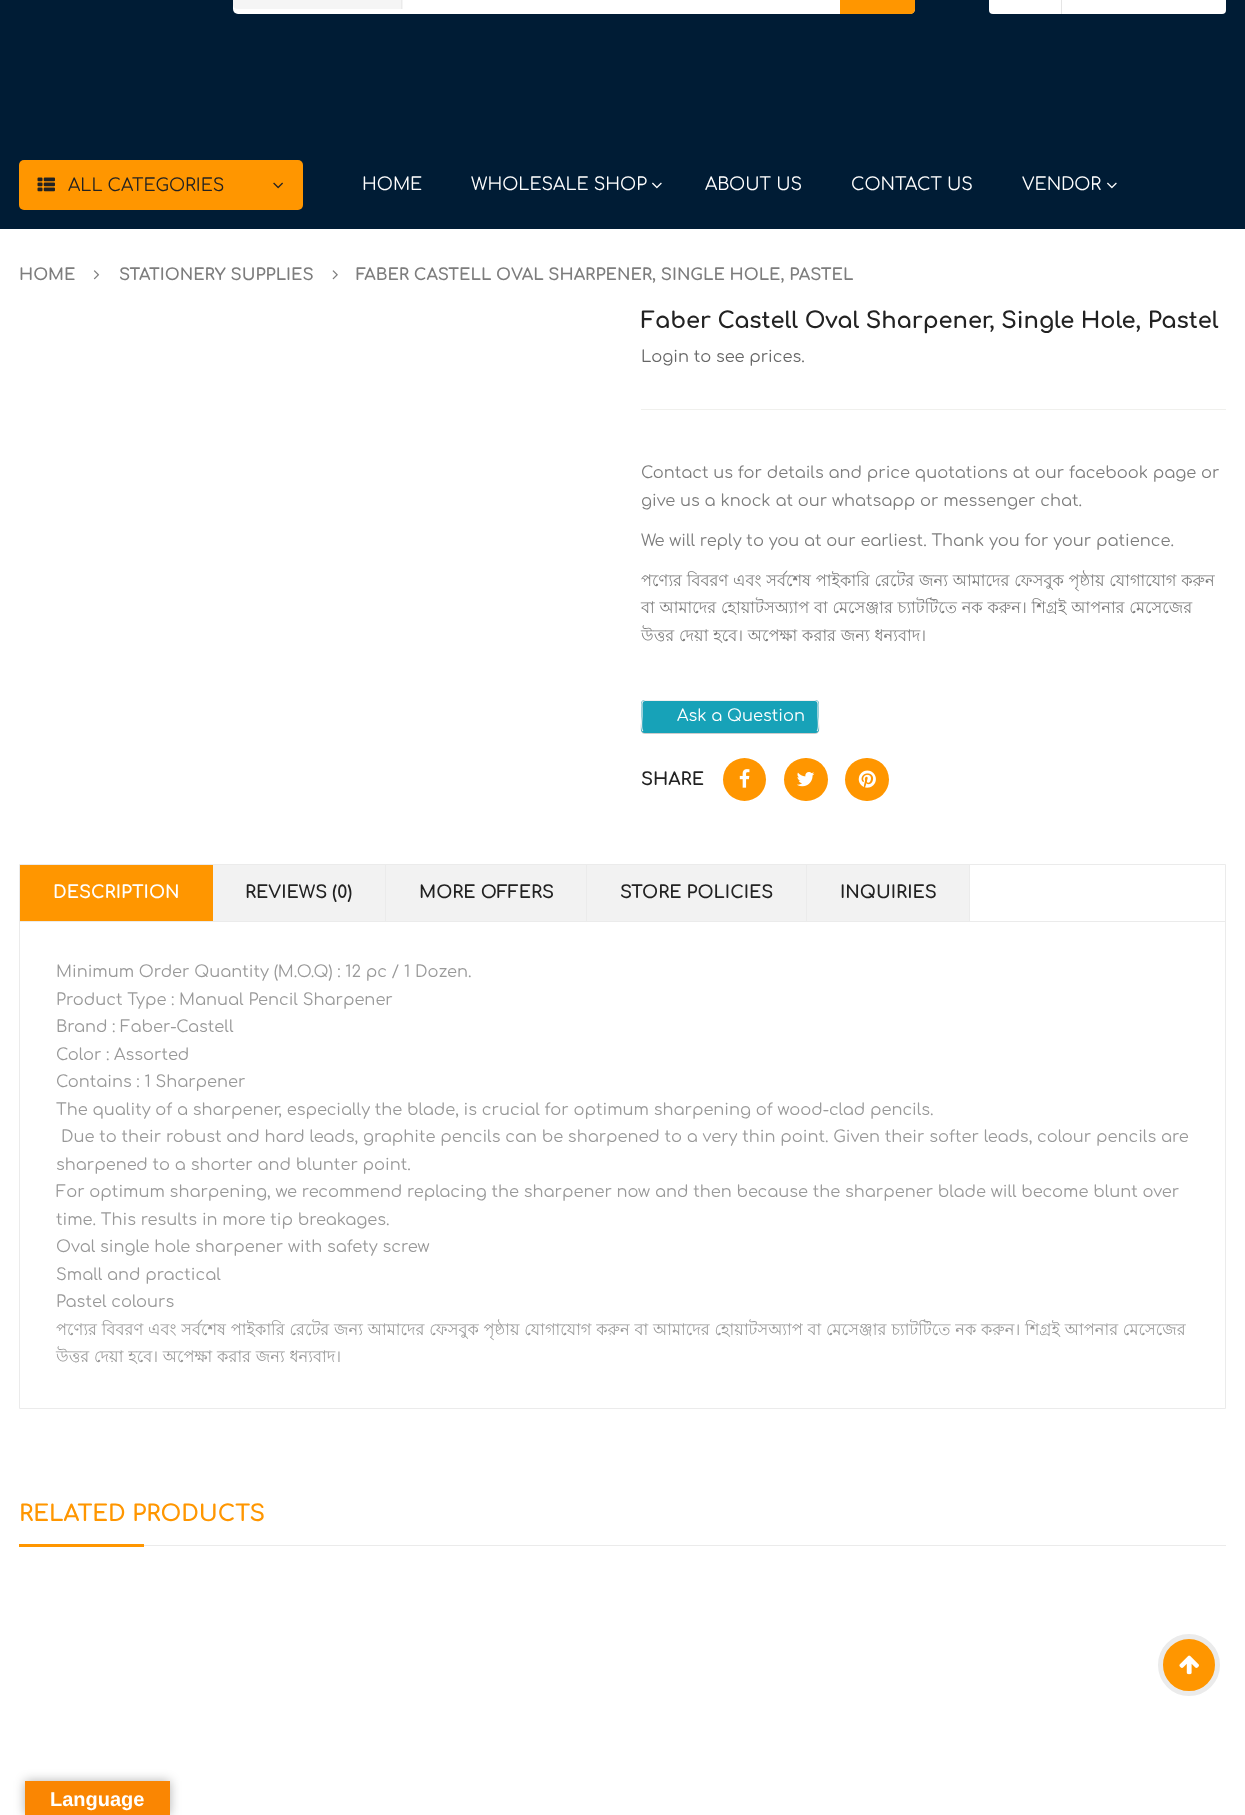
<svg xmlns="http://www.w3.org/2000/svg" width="1245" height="1815">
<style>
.a{font:17.5px Comfortaa;fill:#222}
.b{font:17.5px Comfortaa;fill:#fff}
.c{font:bold 16.25px Comfortaa;fill:#7d7d7d}
.d{font:bold 22.5px Comfortaa;fill:#222}
.e{font:16.25px Comfortaa;fill:#666}
.f{font:16.25px Comfortaa;fill:#7d7d7d}
.g{font:16.25px Lohit Bengali;fill:#7d7d7d}
.h{font:16.25px Comfortaa;fill:#fff}
.i{font:bold 17.5px Comfortaa;fill:#222}
.j{font:bold 17.5px Comfortaa;fill:#fff}
.k{font:16.25px Comfortaa;fill:#999}
.l{font:16.25px Lohit Bengali;fill:#999}
.m{font:bold 22.5px Comfortaa;fill:#ff9600}
.n{font:bold 20px Liberation Sans;fill:#fff}
</style>
<rect width="100%" height="100%" fill="#fff"/>
<path fill="#001c35" d="M0 0h1245v229H0z"/>
<rect fill="#fff" x="233" y="-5" width="682" height="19" rx="5"/>
<path fill="#f5f5f5" d="M238-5h165v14h-165c-3 0-5-2-5-5v-4c0-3 2-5 5-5z"/>
<path fill="#ebebeb" d="M401 0h1v9H401z"/>
<path fill="#ff9600" d="M840-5h70c3 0 5 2 5 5v9c0 3-2 5-5 5h-70z"/>
<rect fill="#fff" x="989" y="-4" width="237" height="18" rx="4"/>
<path fill="#e5e5e5" d="M1061 0h1v14H1061z"/>
<rect fill="#ff9600" x="19" y="160" width="284" height="50" rx="5"/>
<image href="1.png" x="37" y="177" width="18" height="15"/>
<image href="2.png" x="273" y="182" width="10" height="7"/>
<image href="3.png" x="652" y="182" width="10" height="7"/>
<image href="3.png" x="1107" y="182" width="10" height="7"/>
<image href="4.png" x="93" y="270" width="7" height="10"/>
<image href="5.png" x="332" y="270" width="6" height="10"/>
<path fill="#f0f0ed" d="M641 409h585v1H641z"/>
<path fill="#ccc" d="M641 704v18c0 3-2 12 4 12h170c6 0 4-9 4-12v-18v21c0 2 0 7-4 7h-170c-4 0-4-5-4-7z"/>
<rect fill="#17a2b8" x="641" y="700" width="178" height="33" rx="4"/>
<path fill="none" stroke="#17a2b8" stroke-width="1.2" d="M817 731l-2 1h-170l-2-1"/>
<path fill="none" stroke="#f0f0f0" stroke-width="1.2" d="M643 731c-2.5-2-1-12-1-15v-8c0-2.5-1-7.5 3-7.5h170c4 0 3 5 3 7.5v8c0 3 1.5 13-1 15"/>
<circle fill="#ff9600" cx="744.5" cy="779.5" r="21.5"/>
<image href="6.png" x="739" y="769" width="11" height="19"/>
<rect fill="#ff9600" x="784" y="758" width="44" height="43" rx="21.5"/>
<image href="7.png" x="797" y="772" width="18" height="15"/>
<rect fill="#ff9600" x="845" y="758" width="44" height="43" rx="21.5"/>
<image href="8.png" x="858" y="770" width="18" height="18"/>
<path fill="none" stroke="#ebebeb" d="M19.5 864.5h1206v544H19.5z"/>
<path fill="#ebebeb" d="M20 921h1205v1H20z"/>
<path fill="#ff9600" d="M20 865h193v56H20z"/>
<path fill="#f2f2f2" d="M213 865h172v56H213z"/>
<path fill="#ebebeb" d="M385 865h1v56H385z"/>
<path fill="#f2f2f2" d="M386 865h583v56H386z"/>
<path fill="#ebebeb" d="M586 865h1v56H586z"/>
<path fill="#ebebeb" d="M806 865h1v56H806z"/>
<path fill="#ebebeb" d="M969 865h1v56H969z"/>
<path fill="#ebebeb" d="M144 1545h1082v1H144z"/>
<path fill="#ff9600" d="M19 1544h125v3H19z"/>
<circle fill="#ff9600" stroke="#ebebeb" stroke-width="5" cx="1189" cy="1665" r="28.5"/>
<image href="9.png" x="1179" y="1655" width="20" height="20"/>
<path fill="#0000004d" filter="blur(5.5px)" d="M25 1781h145v34H25z"/>
<path fill="#fa8602" d="M25 1781h145v34H25z"/>
<text class="a" x="68" y="191">ALL CATEGORIES</text>
<text class="b" x="362" y="190">HOME</text>
<text class="b" x="471" y="190">WHOLESALE SHOP</text>
<text class="b" x="705" y="190">ABOUT US</text>
<text class="b" x="851" y="190">CONTACT US</text>
<text class="b" x="1022" y="190">VENDOR</text>
<text class="c" x="19" y="280">HOME</text>
<text class="c" x="119" y="280">STATIONERY SUPPLIES</text>
<text class="c" x="356" y="280">FABER CASTELL OVAL SHARPENER, SINGLE HOLE, PASTEL</text>
<text class="d" x="641" y="328">Faber Castell Oval Sharpener, Single Hole, Pastel</text>
<text class="e" x="641" y="362">Login to see prices.</text>
<text class="f" x="641" y="478">Contact us for details and price quotations at our facebook page or</text>
<text class="f" x="641" y="506">give us a knock at our whatsapp or messenger chat.</text>
<text class="f" x="641" y="546">We will reply to you at our earliest. Thank you for your patience.</text>
<text class="g" x="641" y="586" word-spacing="0.25">পণ্যের বিবরণ এবং সর্বশেষ পাইকারি রেটের জন্য আমাদের ফেসবুক পৃষ্ঠায় যোগাযোগ করুন</text>
<text class="g" x="641" y="613" word-spacing="0.25">বা আমাদের হোয়াটসঅ্যাপ বা মেসেঞ্জার চ্যাটটিতে নক করুন। শিগ্রই আপনার মেসেজের</text>
<text class="g" x="641" y="641" word-spacing="0.25">উত্তর দেয়া হবে। অপেক্ষা করার জন্য ধন্যবাদ।</text>
<text class="h" x="677" y="721">Ask a Question</text>
<text class="i" x="641" y="785">SHARE</text>
<text class="j" x="53" y="898">DESCRIPTION</text>
<text class="i" x="245" y="898">REVIEWS (0)</text>
<text class="i" x="419" y="898">MORE OFFERS</text>
<text class="i" x="620" y="898">STORE POLICIES</text>
<text class="i" x="840" y="898">INQUIRIES</text>
<text class="k" x="56" y="977">Minimum Order Quantity (M.O.Q) : 12 pc / 1 Dozen.</text>
<text class="k" x="56" y="1005">Product Type : Manual Pencil Sharpener</text>
<text class="k" x="56" y="1032">Brand : Faber-Castell</text>
<text class="k" x="56" y="1060">Color : Assorted</text>
<text class="k" x="56" y="1087">Contains : 1 Sharpener</text>
<text class="k" x="56" y="1115">The quality of a sharpener, especially the blade, is crucial for optimum sharpening of wood-clad pencils.</text>
<text class="k" x="61" y="1142">Due to their robust and hard leads, graphite pencils can be sharpened to a very thin point. Given their softer leads, colour pencils are</text>
<text class="k" x="56" y="1170">sharpened to a shorter and blunter point.</text>
<text class="k" x="56" y="1197">For optimum sharpening, we recommend replacing the sharpener now and then because the sharpener blade will become blunt over</text>
<text class="k" x="56" y="1225">time. This results in more tip breakages.</text>
<text class="k" x="56" y="1252">Oval single hole sharpener with safety screw</text>
<text class="k" x="56" y="1280">Small and practical</text>
<text class="k" x="56" y="1307">Pastel colours</text>
<text class="l" x="56" y="1335" word-spacing="0.25">পণ্যের বিবরণ এবং সর্বশেষ পাইকারি রেটের জন্য আমাদের ফেসবুক পৃষ্ঠায় যোগাযোগ করুন বা আমাদের হোয়াটসঅ্যাপ বা মেসেঞ্জার চ্যাটটিতে নক করুন। শিগ্রই আপনার মেসেজের</text>
<text class="l" x="56" y="1362" word-spacing="0.25">উত্তর দেয়া হবে। অপেক্ষা করার জন্য ধন্যবাদ।</text>
<text class="m" x="19" y="1521">RELATED PRODUCTS</text>
<text class="n" x="50" y="1806">Language</text>
</svg>
